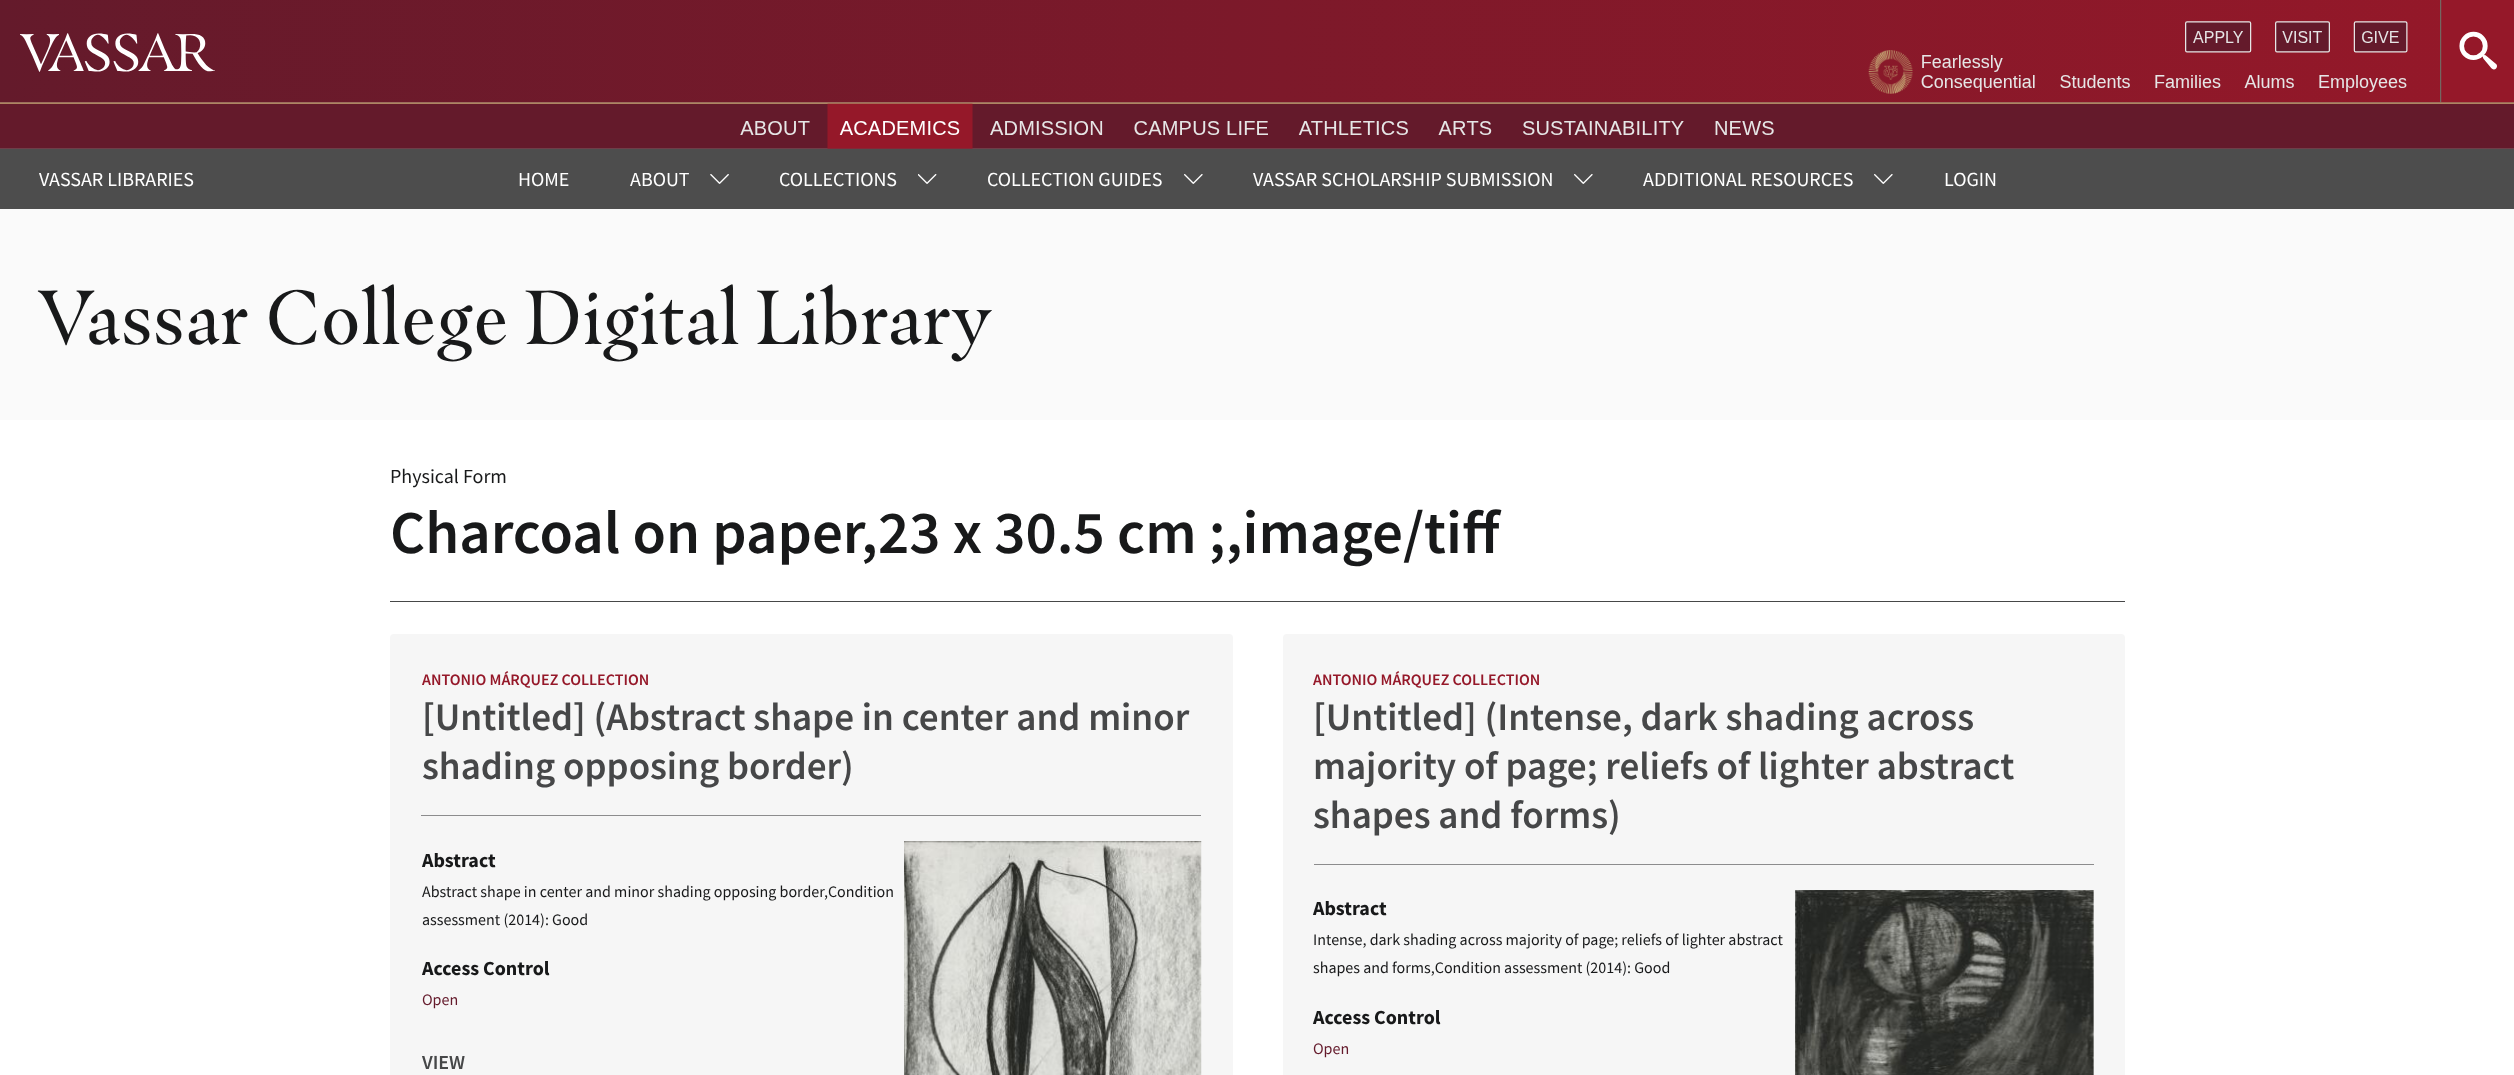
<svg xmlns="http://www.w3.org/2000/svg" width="2514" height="1075">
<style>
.a{font:20px Source Sans Pro;fill:#fff}
.b{font:76.25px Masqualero;fill:#18191a}
.c{font:20px Source Sans Pro;fill:#18191a}
.d{font:600 61px Source Sans Pro;fill:#18191a}
.e{font:600 16px Source Sans Pro;fill:#951829}
.f{font:600 39.1px Source Sans Pro;fill:#464748}
.g{font:bold 20px Source Sans Pro;fill:#18191a}
.h{font:16px Source Sans Pro;fill:#18191a}
.i{font:16px Source Sans Pro;fill:#641a2b}
.j{font:600 20px Source Sans Pro;fill:#464748}
</style>
<rect width="100%" height="100%" fill="#fff"/>
<image href="1.png" x="0" y="0" width="2514" height="149"/>
<path fill="#4d4d4d" d="M0 149h2514v60H0z"/>
<image href="2.png" x="710" y="174" width="19" height="10"/>
<image href="3.png" x="918" y="174" width="19" height="10"/>
<image href="4.png" x="1184" y="174" width="19" height="10"/>
<image href="4.png" x="1574" y="174" width="19" height="10"/>
<image href="4.png" x="1874" y="174" width="19" height="10"/>
<path fill="#fafafa" d="M0 209h2514v211H0z"/>
<path fill="#464748" d="M390 601h1735v1H390z"/>
<rect fill="#f6f6f6" x="390" y="634" width="843" height="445" rx="4"/>
<path fill="#8c8c8d" d="M421 815h780v1H421z"/>
<image href="5.png" x="904" y="841" width="298" height="234"/>
<rect fill="#f6f6f6" x="1283" y="634" width="842" height="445" rx="4"/>
<path fill="#8c8c8d" d="M1314 864h780v1H1314z"/>
<image href="6.png" x="1795" y="890" width="299" height="185"/>
<text class="a" x="39" y="186">VASSAR LIBRARIES</text>
<text class="a" x="518" y="186">HOME</text>
<text class="a" x="630" y="186">ABOUT</text>
<text class="a" x="779" y="186">COLLECTIONS</text>
<text class="a" x="987" y="186">COLLECTION GUIDES</text>
<text class="a" x="1253" y="186">VASSAR SCHOLARSHIP SUBMISSION</text>
<text class="a" x="1643" y="186">ADDITIONAL RESOURCES</text>
<text class="a" x="1944" y="186">LOGIN</text>
<text class="b" x="39" y="344">Vassar College Digital Library</text>
<text class="c" x="390" y="483">Physical Form</text>
<text class="d" x="390" y="553">Charcoal on paper,23 x 30.5 cm ;,image/tiff</text>
<text class="e" x="422" y="685">ANTONIO MÁRQUEZ COLLECTION</text>
<text class="f" x="422" y="730">[Untitled] (Abstract shape in center and minor</text>
<text class="f" x="422" y="779">shading opposing border)</text>
<text class="g" x="422" y="867">Abstract</text>
<text class="h" x="422" y="897">Abstract shape in center and minor shading opposing border,Condition</text>
<text class="h" x="422" y="925">assessment (2014): Good</text>
<text class="g" x="422" y="975">Access Control</text>
<text class="i" x="422" y="1005">Open</text>
<text class="j" x="422" y="1069">VIEW</text>
<text class="e" x="1313" y="685">ANTONIO MÁRQUEZ COLLECTION</text>
<text class="f" x="1313" y="730">[Untitled] (Intense, dark shading across</text>
<text class="f" x="1313" y="779">majority of page; reliefs of lighter abstract</text>
<text class="f" x="1313" y="828">shapes and forms)</text>
<text class="g" x="1313" y="915">Abstract</text>
<text class="h" x="1313" y="945">Intense, dark shading across majority of page; reliefs of lighter abstract</text>
<text class="h" x="1313" y="973">shapes and forms,Condition assessment (2014): Good</text>
<text class="g" x="1313" y="1024">Access Control</text>
<text class="i" x="1313" y="1054">Open</text>
</svg>
